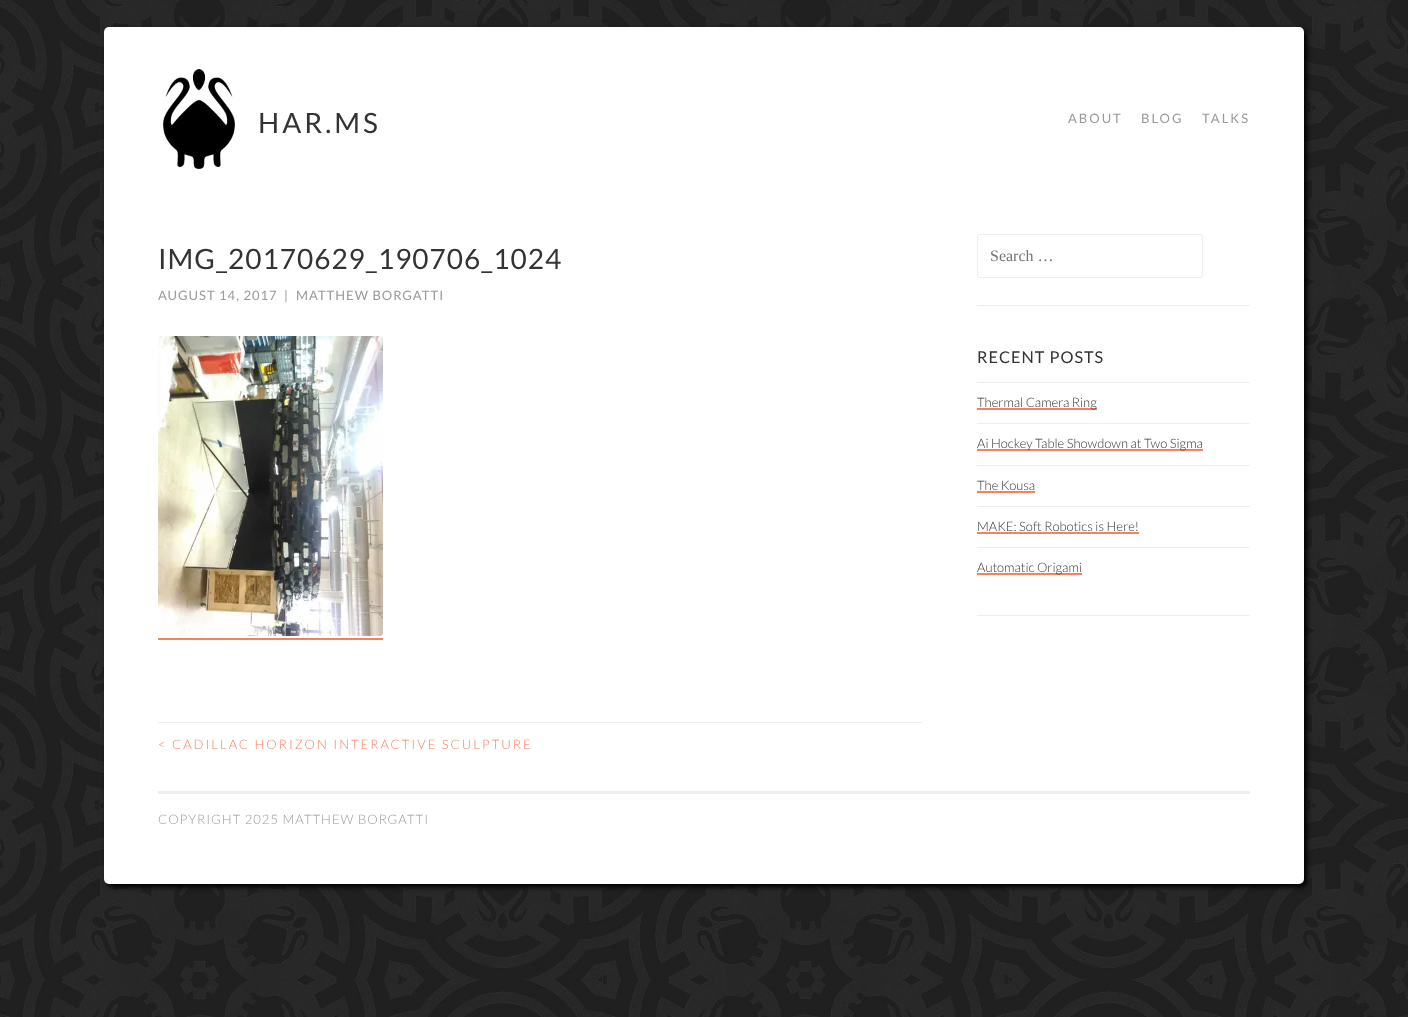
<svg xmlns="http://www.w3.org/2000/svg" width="1408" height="1017">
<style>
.a{font:28px Lato;letter-spacing:3px;fill:#333}
.b{font:13px Lato;letter-spacing:2px;fill:#999}
.c{font:28px Lato;letter-spacing:1px;fill:#333}
.d{font:13px Lato;letter-spacing:1px;fill:#999}
.e{font:300 13px Lato;letter-spacing:2px;fill:#f68060}
.f{font:16px Liberation Serif;fill:#757575}
.g{font:16.25px Lato;letter-spacing:1px;fill:#333}
.h{font:300 13px Lato;fill:#333}
.i{font:300 13px Lato;letter-spacing:1px;fill:#999}
</style>
<rect width="100%" height="100%" fill="#fff"/>
<image href="1.png" x="0" y="0" width="1408" height="1017"/>
<rect fill="#000" filter="blur(2.5px)" x="107" y="30" width="1200" height="857" rx="5"/>
<rect fill="#fff" x="104" y="27" width="1200" height="857" rx="5"/>
<image href="2.png" x="163" y="69" width="72" height="100"/>
<image href="3.png" x="158" y="336" width="225" height="300"/>
<path fill="#f68060" d="M158 638h225v2H158z"/>
<path fill="#eee" d="M158 722h764v1H158z"/>
<path fill="#eee" d="M977 305h273v1H977z"/>
<rect fill="none" stroke="#eee" x="977.5" y="234.5" width="225" height="43" rx="2.5"/>
<path fill="#eee" d="M977 615h273v1H977z"/>
<path fill="#eee" d="M977 382h273v1H977z"/>
<path fill="#f68060" d="M977 408h120v2H977z"/>
<path fill="#eee" d="M977 423h273v1H977z"/>
<path fill="#f68060" d="M977 449h226v2H977z"/>
<path fill="#eee" d="M977 465h273v1H977z"/>
<path fill="#f68060" d="M977 491h58v2H977z"/>
<path fill="#eee" d="M977 506h273v1H977z"/>
<path fill="#f68060" d="M977 532h162v2H977z"/>
<path fill="#eee" d="M977 547h273v1H977z"/>
<path fill="#f68060" d="M977 573h105v2H977z"/>
<path fill="#eee" d="M158 791h1092v3H158z"/>
<text class="a" x="258" y="133">HAR.MS</text>
<text class="b" x="1068" y="123">ABOUT</text>
<text class="b" x="1141" y="123">BLOG</text>
<text class="b" x="1202" y="123">TALKS</text>
<text class="c" x="158" y="269">IMG_20170629_190706_1024</text>
<text class="d" x="158" y="300">AUGUST 14, 2017</text>
<text class="d" x="284" y="300">|</text>
<text class="d" x="296" y="300">MATTHEW BORGATTI</text>
<text class="e" x="158" y="749">&lt; CADILLAC HORIZON INTERACTIVE SCULPTURE</text>
<text class="f" x="990" y="261">Search …</text>
<text class="g" x="977" y="363">RECENT POSTS</text>
<text class="h" x="977" y="407">Thermal Camera Ring</text>
<text class="h" x="977" y="448">Ai Hockey Table Showdown at Two Sigma</text>
<text class="h" x="977" y="490">The Kousa</text>
<text class="h" x="977" y="531">MAKE: Soft Robotics is Here!</text>
<text class="h" x="977" y="572">Automatic Origami</text>
<text class="i" x="158" y="824">COPYRIGHT 2025 MATTHEW BORGATTI</text>
</svg>
